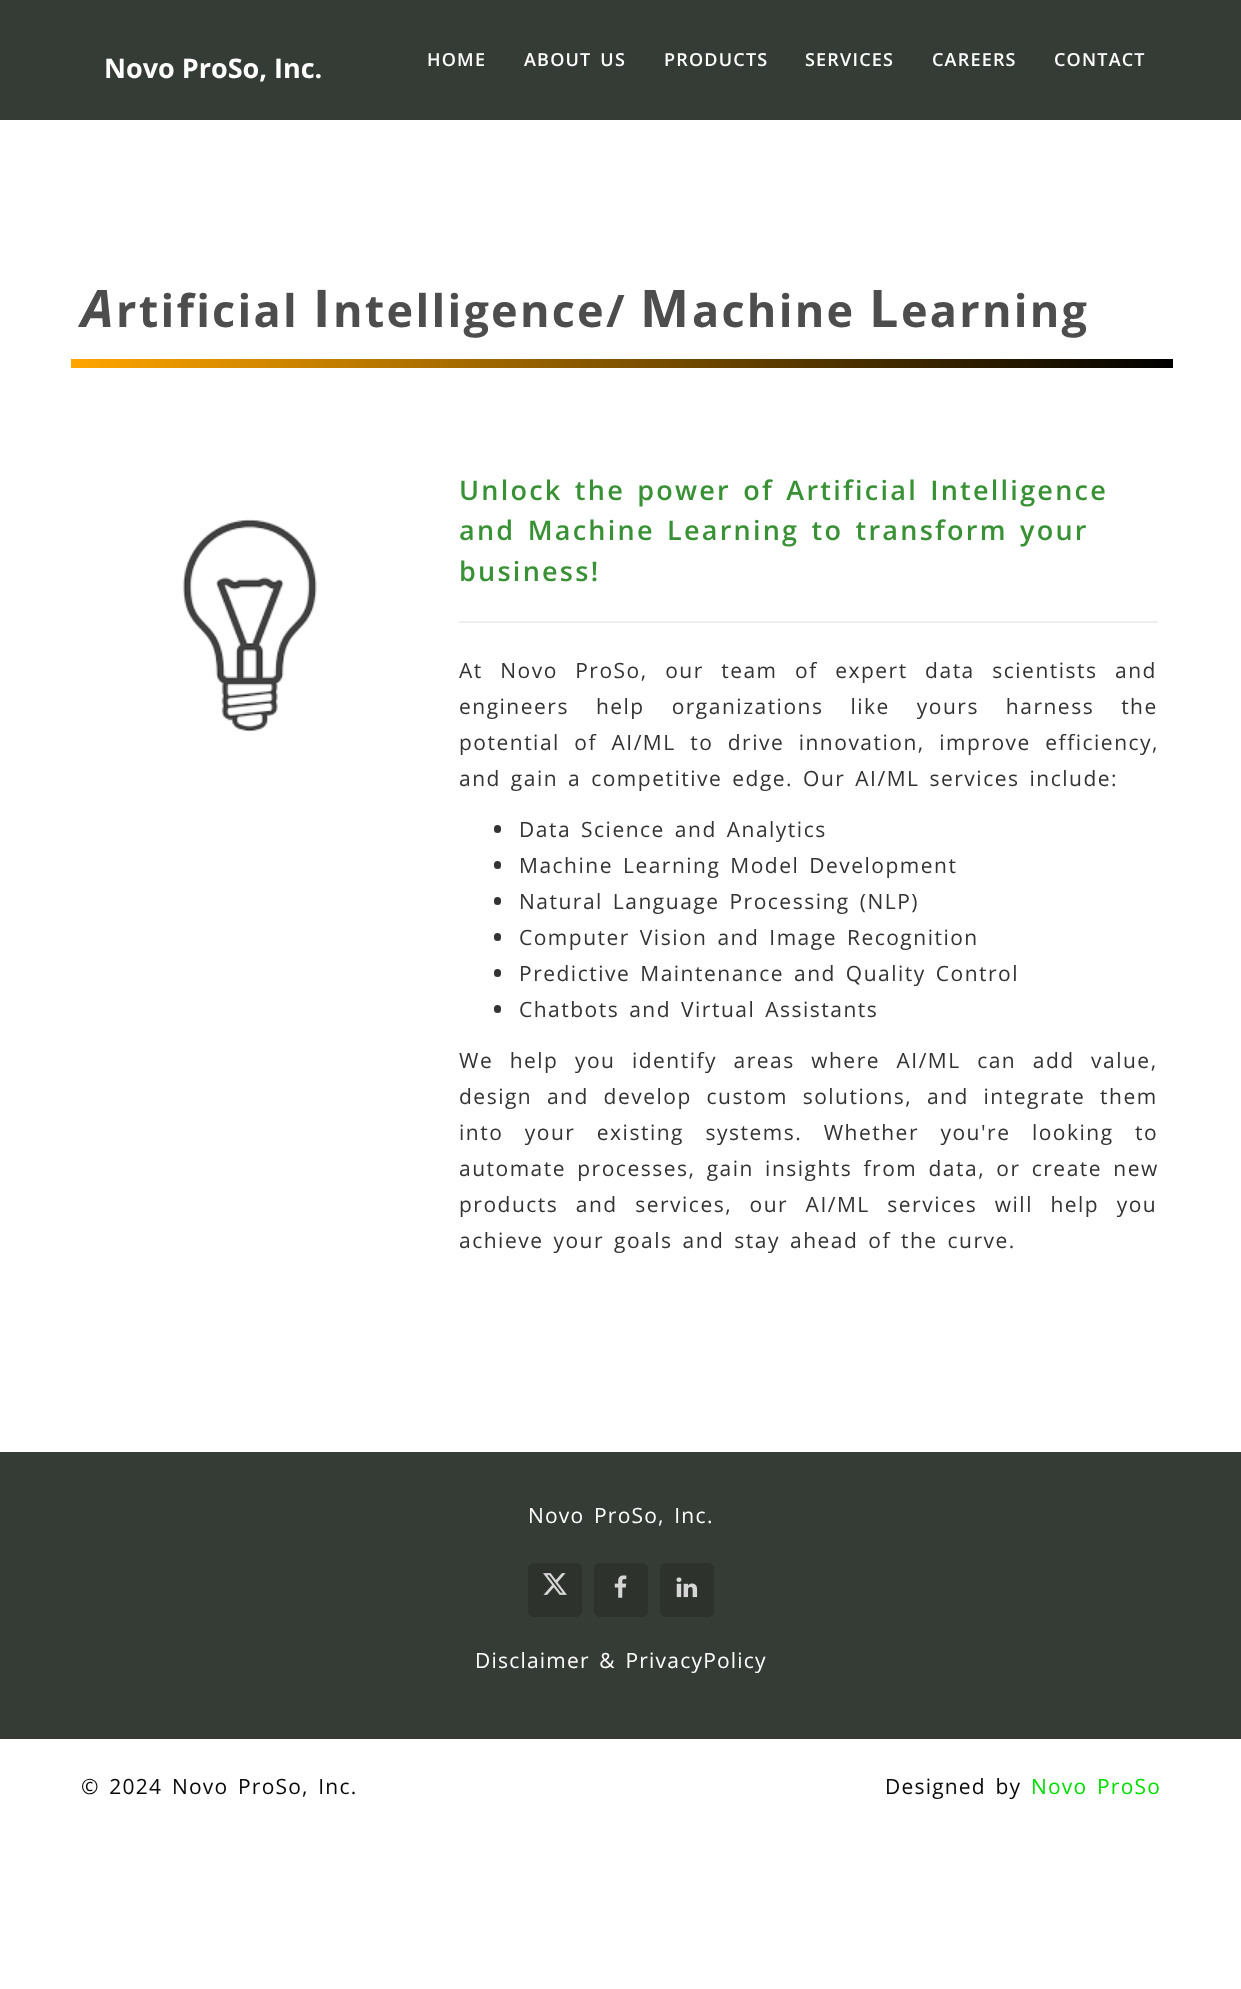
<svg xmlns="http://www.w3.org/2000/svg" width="1241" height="1989">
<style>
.a{font:bold 27px Open Sans;fill:#fff}
.b{font:600 18px Open Sans;letter-spacing:1.2px;fill:#fff}
.c{font:italic bold 52px Open Sans;letter-spacing:2.25px;fill:#4d4d4d}
.d{font:bold 45px Open Sans;letter-spacing:2.25px;fill:#4d4d4d}
.e{font:bold 52px Open Sans;letter-spacing:2.25px;fill:#4d4d4d}
.f{font:600 27px Open Sans;letter-spacing:2.25px;fill:#399135}
.g{font:21px Open Sans;letter-spacing:1.5px;fill:#333}
.h{font:21px Open Sans;letter-spacing:1.2px;fill:#fff}
.i{font:21px Open Sans;letter-spacing:1.2px;fill:#080808}
.j{font:21px Open Sans;letter-spacing:1.2px;fill:#0d0}
</style>
<defs>
<linearGradient id="g1" gradientUnits="userSpaceOnUse" x1="71" y1="363" x2="1173" y2="363"><stop offset="0" stop-color="#ffa500"/><stop offset="1" stop-color="#000"/></linearGradient>
</defs>
<rect width="100%" height="100%" fill="#fff"/>
<path fill="#353c36" d="M0 0h1241v120H0z"/>
<path fill="url(#g1)" d="M71 359h1102v9H71z"/>
<image href="1.png" x="182" y="519" width="135" height="213"/>
<path fill="#eee" d="M459 621h699v2H459z"/>
<rect fill="#333" x="494" y="825" width="7" height="8" rx="3.5"/>
<rect fill="#333" x="494" y="861" width="7" height="8" rx="3.5"/>
<rect fill="#333" x="494" y="897" width="7" height="8" rx="3.5"/>
<rect fill="#333" x="494" y="933" width="7" height="8" rx="3.5"/>
<rect fill="#333" x="494" y="969" width="7" height="8" rx="3.5"/>
<rect fill="#333" x="494" y="1005" width="7" height="8" rx="3.5"/>
<path fill="#353c36" d="M0 1452h1241v287H0z"/>
<rect fill="#2d322d" x="528" y="1563" width="54" height="54" rx="6"/>
<image href="2.png" x="543" y="1573" width="24" height="22"/>
<rect fill="#2d322d" x="594" y="1563" width="54" height="54" rx="6"/>
<image href="3.png" x="614" y="1575" width="13" height="23"/>
<rect fill="#2d322d" x="660" y="1563" width="54" height="54" rx="6"/>
<image href="4.png" x="676" y="1577" width="22" height="21"/>
<text class="a" x="104" y="78">Novo ProSo, Inc.</text>
<text class="b" x="427" y="66">HOME</text>
<text class="b" x="524" y="66" word-spacing="3">ABOUT US</text>
<text class="b" x="664" y="66">PRODUCTS</text>
<text class="b" x="805" y="66">SERVICES</text>
<text class="b" x="932" y="66">CAREERS</text>
<text class="b" x="1054" y="66">CONTACT</text>
<text class="c" x="81" y="327">A</text>
<text class="d" x="116" y="327">rtificial</text>
<text class="e" x="313" y="327">I</text>
<text class="d" x="333" y="327">ntelligence/</text>
<text class="e" x="640" y="327">M</text>
<text class="d" x="692" y="327">achine</text>
<text class="e" x="869" y="327">L</text>
<text class="d" x="901" y="327">earning</text>
<text class="f" x="459" y="500" word-spacing="3">Unlock the power of Artificial Intelligence</text>
<text class="f" x="459" y="540" word-spacing="3">and Machine Learning to transform your</text>
<text class="f" x="459" y="581">business!</text>
<text class="g" x="459" y="678" word-spacing="10.5">At Novo ProSo, our team of expert data scientists and</text>
<text class="g" x="459" y="714" word-spacing="20">engineers help organizations like yours harness the</text>
<text class="g" x="459" y="750" word-spacing="7.5">potential of AI/ML to drive innovation, improve efficiency,</text>
<text class="g" x="459" y="786" word-spacing="3">and gain a competitive edge. Our AI/ML services include:</text>
<text class="g" x="519" y="837" word-spacing="3">Data Science and Analytics</text>
<text class="g" x="519" y="873" word-spacing="3">Machine Learning Model Development</text>
<text class="g" x="519" y="909" word-spacing="3">Natural Language Processing (NLP)</text>
<text class="g" x="519" y="945" word-spacing="3">Computer Vision and Image Recognition</text>
<text class="g" x="519" y="981" word-spacing="3">Predictive Maintenance and Quality Control</text>
<text class="g" x="519" y="1017" word-spacing="3">Chatbots and Virtual Assistants</text>
<text class="g" x="459" y="1068" word-spacing="9.5">We help you identify areas where AI/ML can add value,</text>
<text class="g" x="459" y="1104" word-spacing="7.75">design and develop custom solutions, and integrate them</text>
<text class="g" x="459" y="1140" word-spacing="14.5">into your existing systems. Whether you're looking to</text>
<text class="g" x="459" y="1176" word-spacing="4.25">automate processes, gain insights from data, or create new</text>
<text class="g" x="459" y="1212" word-spacing="10.5">products and services, our AI/ML services will help you</text>
<text class="g" x="459" y="1248" word-spacing="3">achieve your goals and stay ahead of the curve.</text>
<text class="h" x="528" y="1523" word-spacing="3">Novo ProSo, Inc</text>
<text class="h" x="707" y="1523">.</text>
<text class="h" x="475" y="1668" word-spacing="3">Disclaimer &amp; PrivacyPolicy</text>
<text class="i" x="81" y="1794" word-spacing="3">© 2024</text>
<text class="i" x="172" y="1794" word-spacing="3">Novo ProSo, Inc.</text>
<text class="i" x="885" y="1794" word-spacing="3">Designed by</text>
<text class="j" x="1031" y="1794" word-spacing="3">Novo ProSo</text>
</svg>
